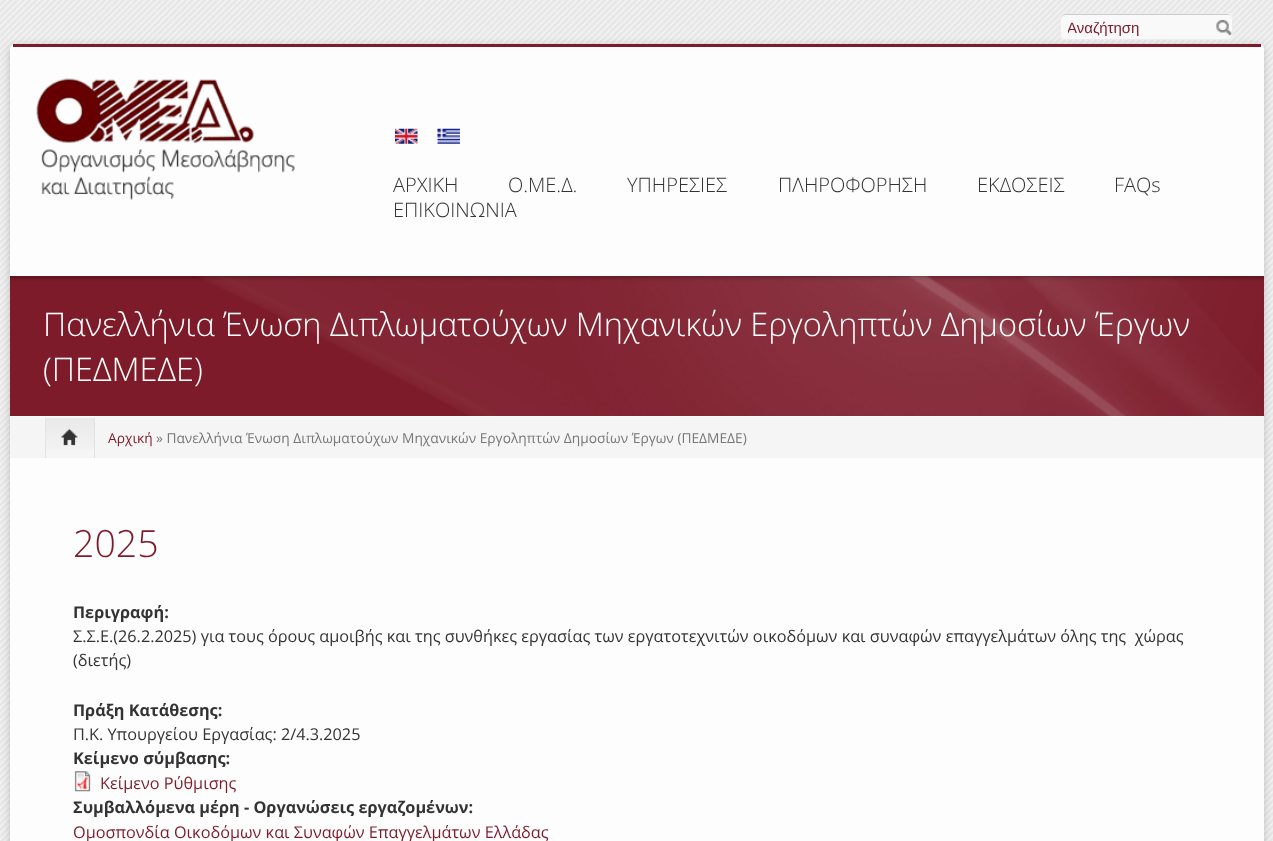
<svg xmlns="http://www.w3.org/2000/svg" width="1273" height="841">
<style>
.a{font:15px Liberation Sans;fill:#7d1b2a}
.b{font:300 20px Open Sans;fill:#333}
.c{font:300 32.5px Open Sans;fill:#fff}
.d{font:13.75px Open Sans;fill:#7d1b2a}
.e{font:13.75px Open Sans;fill:#777}
.f{font:300 37.5px Open Sans;fill:#7d1b2a}
.g{font:bold 16.25px Open Sans;fill:#333}
.h{font:16.25px Open Sans;fill:#333}
.i{font:16.25px Open Sans;fill:#7d1b2a}
</style>
<defs>
<linearGradient id="g1" gradientUnits="userSpaceOnUse" x1="70" y1="418" x2="70" y2="458"><stop offset="0" stop-color="#e9e9e9"/><stop offset="1" stop-color="#f5f5f5"/></linearGradient>
<clipPath id="clip1"><path d="M1068 19h157v17H1068z"/></clipPath>
</defs>
<rect width="100%" height="100%" fill="#fff"/>
<image href="1.png" x="0" y="0" width="1273" height="841"/>
<rect fill="#32323240" filter="blur(4px)" x="10" y="46" width="1254" height="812" rx="5"/>
<rect fill="#f9f9f9" x="1060" y="13" width="173" height="27" rx="5"/>
<path fill="#ccc" d="M1065 15h163c2 0 3 2 3 4v-1c0-2-2-4-4-4h-162c-2 0-4 2-4 4v1c0-2 2-4 4-4z"/>
<rect fill="none" stroke="#ececec" x="1060.5" y="13.5" width="172" height="26" rx="4.5"/>
<image href="2.png" x="1216" y="19" width="16" height="17"/>
<rect fill="#fdfdfd" x="10" y="44" width="1254" height="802" rx="5"/>
<path fill="#7d1b2a" d="M13 44h1248v3H13z"/>
<image href="3.png" x="36" y="78" width="259" height="122"/>
<image href="4.png" x="395" y="128" width="23" height="16"/>
<image href="5.png" x="437" y="128" width="23" height="16"/>
<path fill="#7d1b2a" d="M10 276h1254v140H10z"/>
<image href="6.png" x="10" y="276" width="1254" height="140"/>
<path fill="#f5f5f5" d="M10 417h1254v41H10z"/>
<path fill="url(#g1)" d="M46 418h48v32H46z"/>
<path fill="#e2e2e2" d="M94 418h1v40H94z"/>
<path fill="#e2e2e2" d="M45 418h1v40H45z"/>
<image href="7.png" x="61" y="428" width="17" height="18"/>
<image href="8.png" x="74" y="771" width="17" height="21"/>
<g clip-path="url(#clip1)">
<text class="a" x="1067" y="33">Αναζήτηση</text>
</g>
<text class="b" x="393" y="192">ΑΡΧΙΚΗ</text>
<text class="b" x="508" y="192">Ο.ΜΕ.Δ.</text>
<text class="b" x="627" y="192">ΥΠΗΡΕΣΙΕΣ</text>
<text class="b" x="778" y="192">ΠΛΗΡΟΦΟΡΗΣΗ</text>
<text class="b" x="977" y="192">ΕΚΔΟΣΕΙΣ</text>
<text class="b" x="1114" y="192">FAQs</text>
<text class="b" x="393" y="217">ΕΠΙΚΟΙΝΩΝΙΑ</text>
<text class="c" x="43" y="336">Πανελλήνια Ένωση Διπλωματούχων Μηχανικών Εργοληπτών Δημοσίων Έργων</text>
<text class="c" x="43" y="381">(ΠΕΔΜΕΔΕ)</text>
<text class="d" x="108" y="443">Αρχική</text>
<text class="e" x="156" y="443">» Πανελλήνια Ένωση Διπλωματούχων Μηχανικών Εργοληπτών Δημοσίων Έργων (ΠΕΔΜΕΔΕ)</text>
<text class="f" x="73" y="557">2025</text>
<text class="g" x="73" y="618">Περιγραφή:</text>
<text class="h" xml:space="preserve" x="73" y="642">Σ.Σ.Ε.(26.2.2025) για τους όρους αμοιβής και της συνθήκες εργασίας των εργατοτεχνιτών οικοδόμων και συναφών επαγγελμάτων όλης της  χώρας</text>
<text class="h" x="73" y="666">(διετής)</text>
<text class="g" x="73" y="716">Πράξη Κατάθεσης:</text>
<text class="h" x="73" y="740">Π.Κ. Υπουργείου Εργασίας: 2/4.3.2025</text>
<text class="g" x="73" y="764">Κείμενο σύμβασης:</text>
<text class="i" x="100" y="789">Κείμενο Ρύθμισης</text>
<text class="g" x="73" y="813">Συμβαλλόμενα μέρη - Οργανώσεις εργαζομένων:</text>
<text class="i" x="73" y="838">Ομοσπονδία Οικοδόμων και Συναφών Επαγγελμάτων Ελλάδας</text>
</svg>
